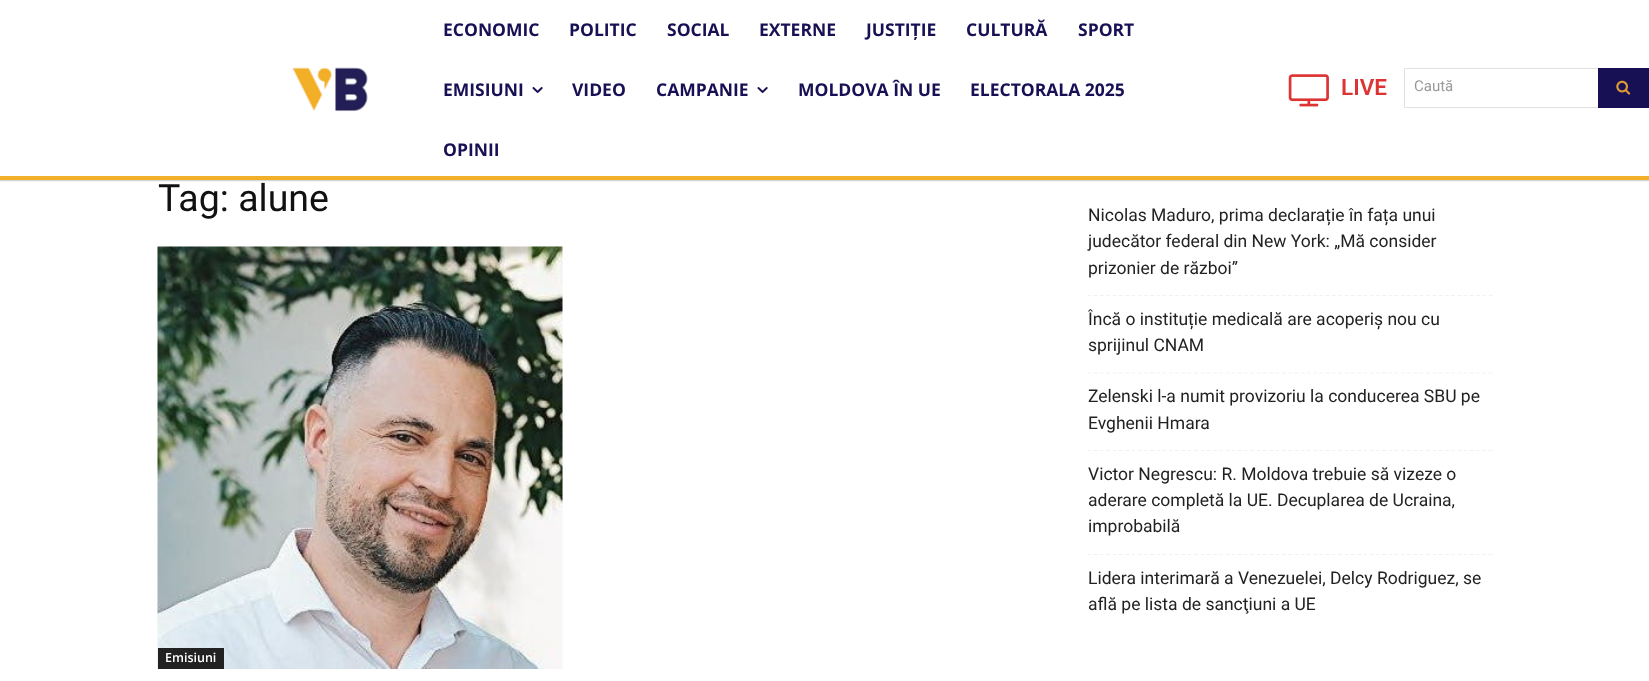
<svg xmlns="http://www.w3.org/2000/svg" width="1649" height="681">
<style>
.a{font:bold 17.5px Open Sans;fill:#171054}
.b{font:600 22.5px Roboto;fill:#d33}
.c{font:15px Roboto;fill:#999}
.d{font:37.5px Roboto;fill:#111}
.e{font:600 12.5px Open Sans;fill:#fff}
.f{font:17.5px Roboto;fill:#222}
</style>
<defs>
<clipPath id="clip1"><path d="M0 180h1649v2H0z"/></clipPath>
</defs>
<rect width="100%" height="100%" fill="#fff"/>
<path fill="#f2af29" d="M0 176h1649v4H0z"/>
<g clip-path="url(#clip1)">
<path fill="#7f7f7f" filter="blur(1px)" d="M-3 0h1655v180H-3z"/>
</g>
<image href="1.png" x="292" y="67" width="76" height="45"/>
<image href="2.png" x="532" y="87" width="11" height="6"/>
<image href="2.png" x="757" y="87" width="11" height="6"/>
<image href="3.png" x="1288" y="74" width="41" height="33"/>
<path fill="none" stroke="#e1e1e1" d="M1404.5 68.5h244v39H1404.5z"/>
<path fill="#171054" d="M1598 68h51v40H1598z"/>
<image href="4.png" x="1616" y="80" width="15" height="15"/>
<image href="5.png" x="157" y="246" width="406" height="423"/>
<path fill="#222" d="M158 648h66v21H158z"/>
<path fill="none" stroke="#f1f1f1" stroke-width="1.2" stroke-dasharray="3.75 2.52" d="M1087.5 295.5h405"/>
<path fill="none" stroke="#f1f1f1" stroke-width="1.2" stroke-dasharray="3.75 2.52" d="M1087.5 373h405"/>
<path fill="none" stroke="#f1f1f1" stroke-width="1.2" stroke-dasharray="3.75 2.52" d="M1087.5 450.5h405"/>
<path fill="none" stroke="#f1f1f1" stroke-width="1.2" stroke-dasharray="3.75 2.52" d="M1087.5 554.5h405"/>
<text class="a" x="443" y="36">ECONOMIC</text>
<text class="a" x="569" y="36">POLITIC</text>
<text class="a" x="667" y="36">SOCIAL</text>
<text class="a" x="759" y="36">EXTERNE</text>
<text class="a" x="866" y="36">JUSTIȚIE</text>
<text class="a" x="966" y="36">CULTURĂ</text>
<text class="a" x="1078" y="36">SPORT</text>
<text class="a" x="443" y="96">EMISIUNI</text>
<text class="a" x="572" y="96">VIDEO</text>
<text class="a" x="656" y="96">CAMPANIE</text>
<text class="a" x="798" y="96">MOLDOVA ÎN UE</text>
<text class="a" x="970" y="96">ELECTORALA 2025</text>
<text class="a" x="443" y="156">OPINII</text>
<text class="b" x="1341" y="95">LIVE</text>
<text class="c" x="1414" y="91">Caută</text>
<text class="d" x="158" y="211">Tag: alune</text>
<text class="e" x="165" y="662">Emisiuni</text>
<text class="f" x="1088" y="221">Nicolas Maduro, prima declarație în fața unui</text>
<text class="f" x="1088" y="247">judecător federal din New York: „Mă consider</text>
<text class="f" x="1088" y="274">prizonier de război”</text>
<text class="f" x="1088" y="325">Încă o instituție medicală are acoperiș nou cu</text>
<text class="f" x="1088" y="351">sprijinul CNAM</text>
<text class="f" x="1088" y="402">Zelenski l-a numit provizoriu la conducerea SBU pe</text>
<text class="f" x="1088" y="429">Evghenii Hmara</text>
<text class="f" x="1088" y="480">Victor Negrescu: R. Moldova trebuie să vizeze o</text>
<text class="f" x="1088" y="506">aderare completă la UE. Decuplarea de Ucraina,</text>
<text class="f" x="1088" y="532">improbabilă</text>
<text class="f" x="1088" y="584">Lidera interimară a Venezuelei, Delcy Rodriguez, se</text>
<text class="f" x="1088" y="610">află pe lista de sancţiuni a UE</text>
</svg>
